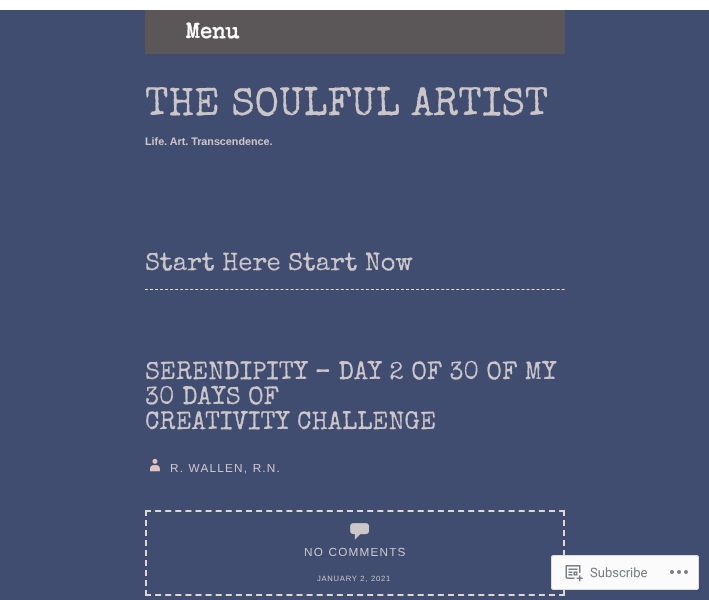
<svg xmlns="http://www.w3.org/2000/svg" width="709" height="600">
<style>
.a{font:bold 21.5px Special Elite;fill:#fff}
.b{font:39.6px Special Elite;fill:#cbc7c8}
.c{font:bold 10.75px Liberation Sans;fill:#cbc7c8}
.d{font:25.25px Special Elite;fill:#cbc7c8}
.e{font:11.75px Liberation Sans;letter-spacing:1.2px;fill:#cbc7c8}
.f{font:7.6px Liberation Sans;letter-spacing:0.75px;fill:#cbc7c8}
.g{font:13px Roboto;fill:#777b82}
</style>
<rect width="100%" height="100%" fill="#fff"/>
<path fill="#414c71" d="M0 10h709v590H0z"/>
<path fill="#5b5758" d="M145 10h420v44H145z"/>
<path fill="none" stroke="#e0d8cc" stroke-dasharray="3 2.02" d="M145 289.5h420"/>
<image href="1.png" x="149" y="458" width="11" height="14"/>
<path fill="none" stroke="#e0d8cc" stroke-width="2" stroke-dasharray="6 4.1" d="M145 511h420"/>
<path fill="none" stroke="#e0d8cc" stroke-width="2" stroke-dasharray="6 4" d="M564 510v86"/>
<path fill="none" stroke="#e0d8cc" stroke-width="2" stroke-dasharray="6 4.1" d="M145 595h420"/>
<path fill="none" stroke="#e0d8cc" stroke-width="2" stroke-dasharray="6 4" d="M146 510v86"/>
<image href="2.png" x="350" y="523" width="20" height="17"/>
<rect fill="#fffffffa" x="551" y="555" width="148" height="35" rx="3"/>
<rect fill="none" stroke="#dcdcdefa" x="551.5" y="555.5" width="147" height="34" rx="2.5"/>
<image href="3.png" x="565" y="565" width="18" height="17"/>
<image href="4.png" x="670" y="570" width="18" height="4"/>
<text class="a" x="185" y="38">Menu</text>
<text class="b" x="145" y="115">THE SOULFUL ARTIST</text>
<text class="c" x="145" y="145">Life. Art. Transcendence.</text>
<text class="d" x="145" y="270">Start Here Start Now</text>
<text class="d" x="145" y="379">SERENDIPITY – DAY 2 OF 30 OF MY</text>
<text class="d" x="145" y="404">30 DAYS OF</text>
<text class="d" x="145" y="429">CREATIVITY CHALLENGE</text>
<text class="e" x="170" y="472">R. WALLEN, R.N.</text>
<text class="e" x="304" y="556">NO COMMENTS</text>
<text class="f" x="317" y="581">JANUARY 2, 2021</text>
<text class="g" x="590" y="577">Subscribe</text>
</svg>
